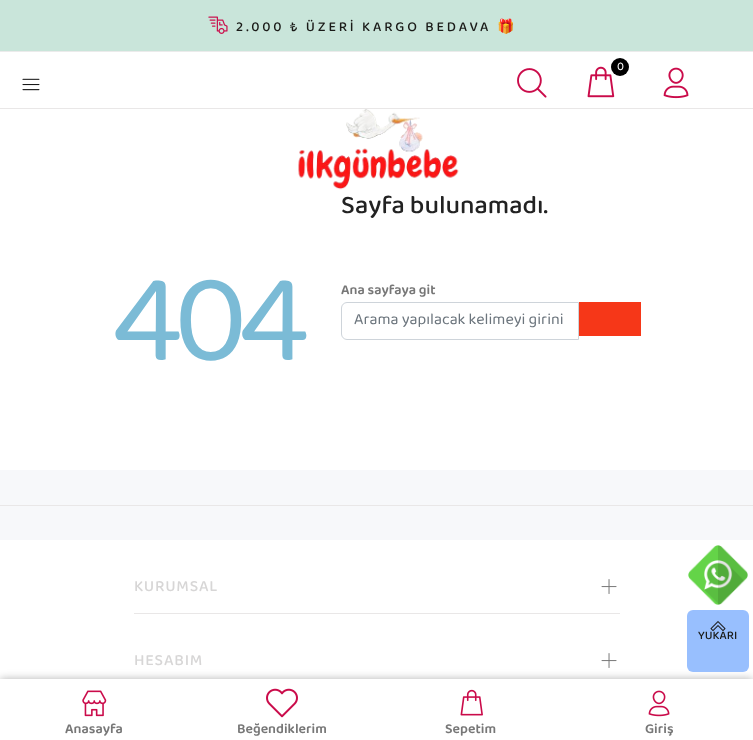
<svg xmlns="http://www.w3.org/2000/svg" width="753" height="740">
<style>
.a{font:500 14px 'Baloo Bhaijaan 2';letter-spacing:2.8px;fill:#1a1b18}
.b{font:14px Noto Color Emoji;letter-spacing:2.8px;fill:#1a1b18}
.c{font:12px 'Baloo Bhaijaan 2';fill:#fff}
.d{font:128px 'Baloo Bhaijaan 2';letter-spacing:-10px;fill:#7bbbd6}
.e{font:500 26px 'Baloo Bhaijaan 2';fill:#222}
.f{font:600 14px 'Baloo Bhaijaan 2';fill:#777}
.g{font:16px 'Baloo Bhaijaan 2';fill:#6c757d}
.h{font:500 16px 'Baloo Bhaijaan 2';letter-spacing:0.75px;fill:#d7d6d6}
.i{font:500 12px 'Baloo Bhaijaan 2';fill:#1a1b18}
</style>
<rect width="100%" height="100%" fill="#fff"/>
<path fill="#c9e5da" d="M0 0h753v51H0z"/>
<path fill="#ebebeb" d="M0 51h753v1H0z"/>
<image href="1.png" x="208" y="16" width="20" height="18"/>
<image href="2.png" x="22" y="78" width="18" height="13"/>
<image href="3.png" x="517" y="68" width="30" height="30"/>
<image href="4.png" x="587" y="66" width="28" height="32"/>
<circle fill="#000" cx="620" cy="67" r="9"/>
<image href="5.png" x="663" y="67" width="26" height="32"/>
<path fill="#e9e7e7" d="M0 108h753v1H0z"/>
<image href="6.png" x="298" y="109" width="161" height="81"/>
<path fill="none" stroke="#ced4da" d="M347 302.5h231.5v37h-231.5c-3 0-5.5-2.5-5.5-5.5v-26c0-3 2.5-5.5 5.5-5.5z"/>
<path fill="#f63718" d="M579 302h62v34H579z"/>
<image href="7.png" x="688" y="545" width="60" height="60"/>
<path fill="#f7f8fa" d="M0 470h753v70H0z"/>
<path fill="#e9e7e7" d="M0 505h753v1H0z"/>
<path fill="#e9e7e7" d="M134 613h486v1H134z"/>
<image href="8.png" x="601" y="579" width="16" height="15"/>
<image href="8.png" x="601" y="653" width="16" height="15"/>
<path fill="#0000004d" filter="blur(4px)" d="M0 679h753v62H0z"/>
<rect fill="#98bffe" x="687" y="610" width="62" height="62" rx="6"/>
<image href="9.png" x="710" y="621" width="16" height="10"/>
<path fill="#fff" d="M0 679h753v61H0z"/>
<image href="10.png" x="82" y="690" width="25" height="27"/>
<image href="11.png" x="266" y="688" width="32" height="30"/>
<image href="12.png" x="460" y="689" width="23" height="27"/>
<image href="13.png" x="648" y="690" width="22" height="27"/>
<text class="a" x="236" y="31">2.000 ₺ ÜZERİ KARGO BEDAVA</text>
<text class="b" x="497" y="31">🎁</text>
<text class="c" x="617" y="70">0</text>
<text class="d" x="112" y="359">404</text>
<text class="e" x="341" y="213">Sayfa bulunamadı.</text>
<text class="f" x="341" y="294">Ana sayfaya git</text>
<text class="g" x="354" y="324">Arama yapılacak kelimeyi girini</text>
<text class="h" x="134" y="591">KURUMSAL</text>
<text class="h" x="134" y="665">HESABIM</text>
<text class="i" x="698" y="639">YUKARI</text>
<text class="f" x="65" y="733">Anasayfa</text>
<text class="f" x="237" y="733">Beğendiklerim</text>
<text class="f" x="445" y="733">Sepetim</text>
<text class="f" x="645" y="733">Giriş</text>
</svg>
